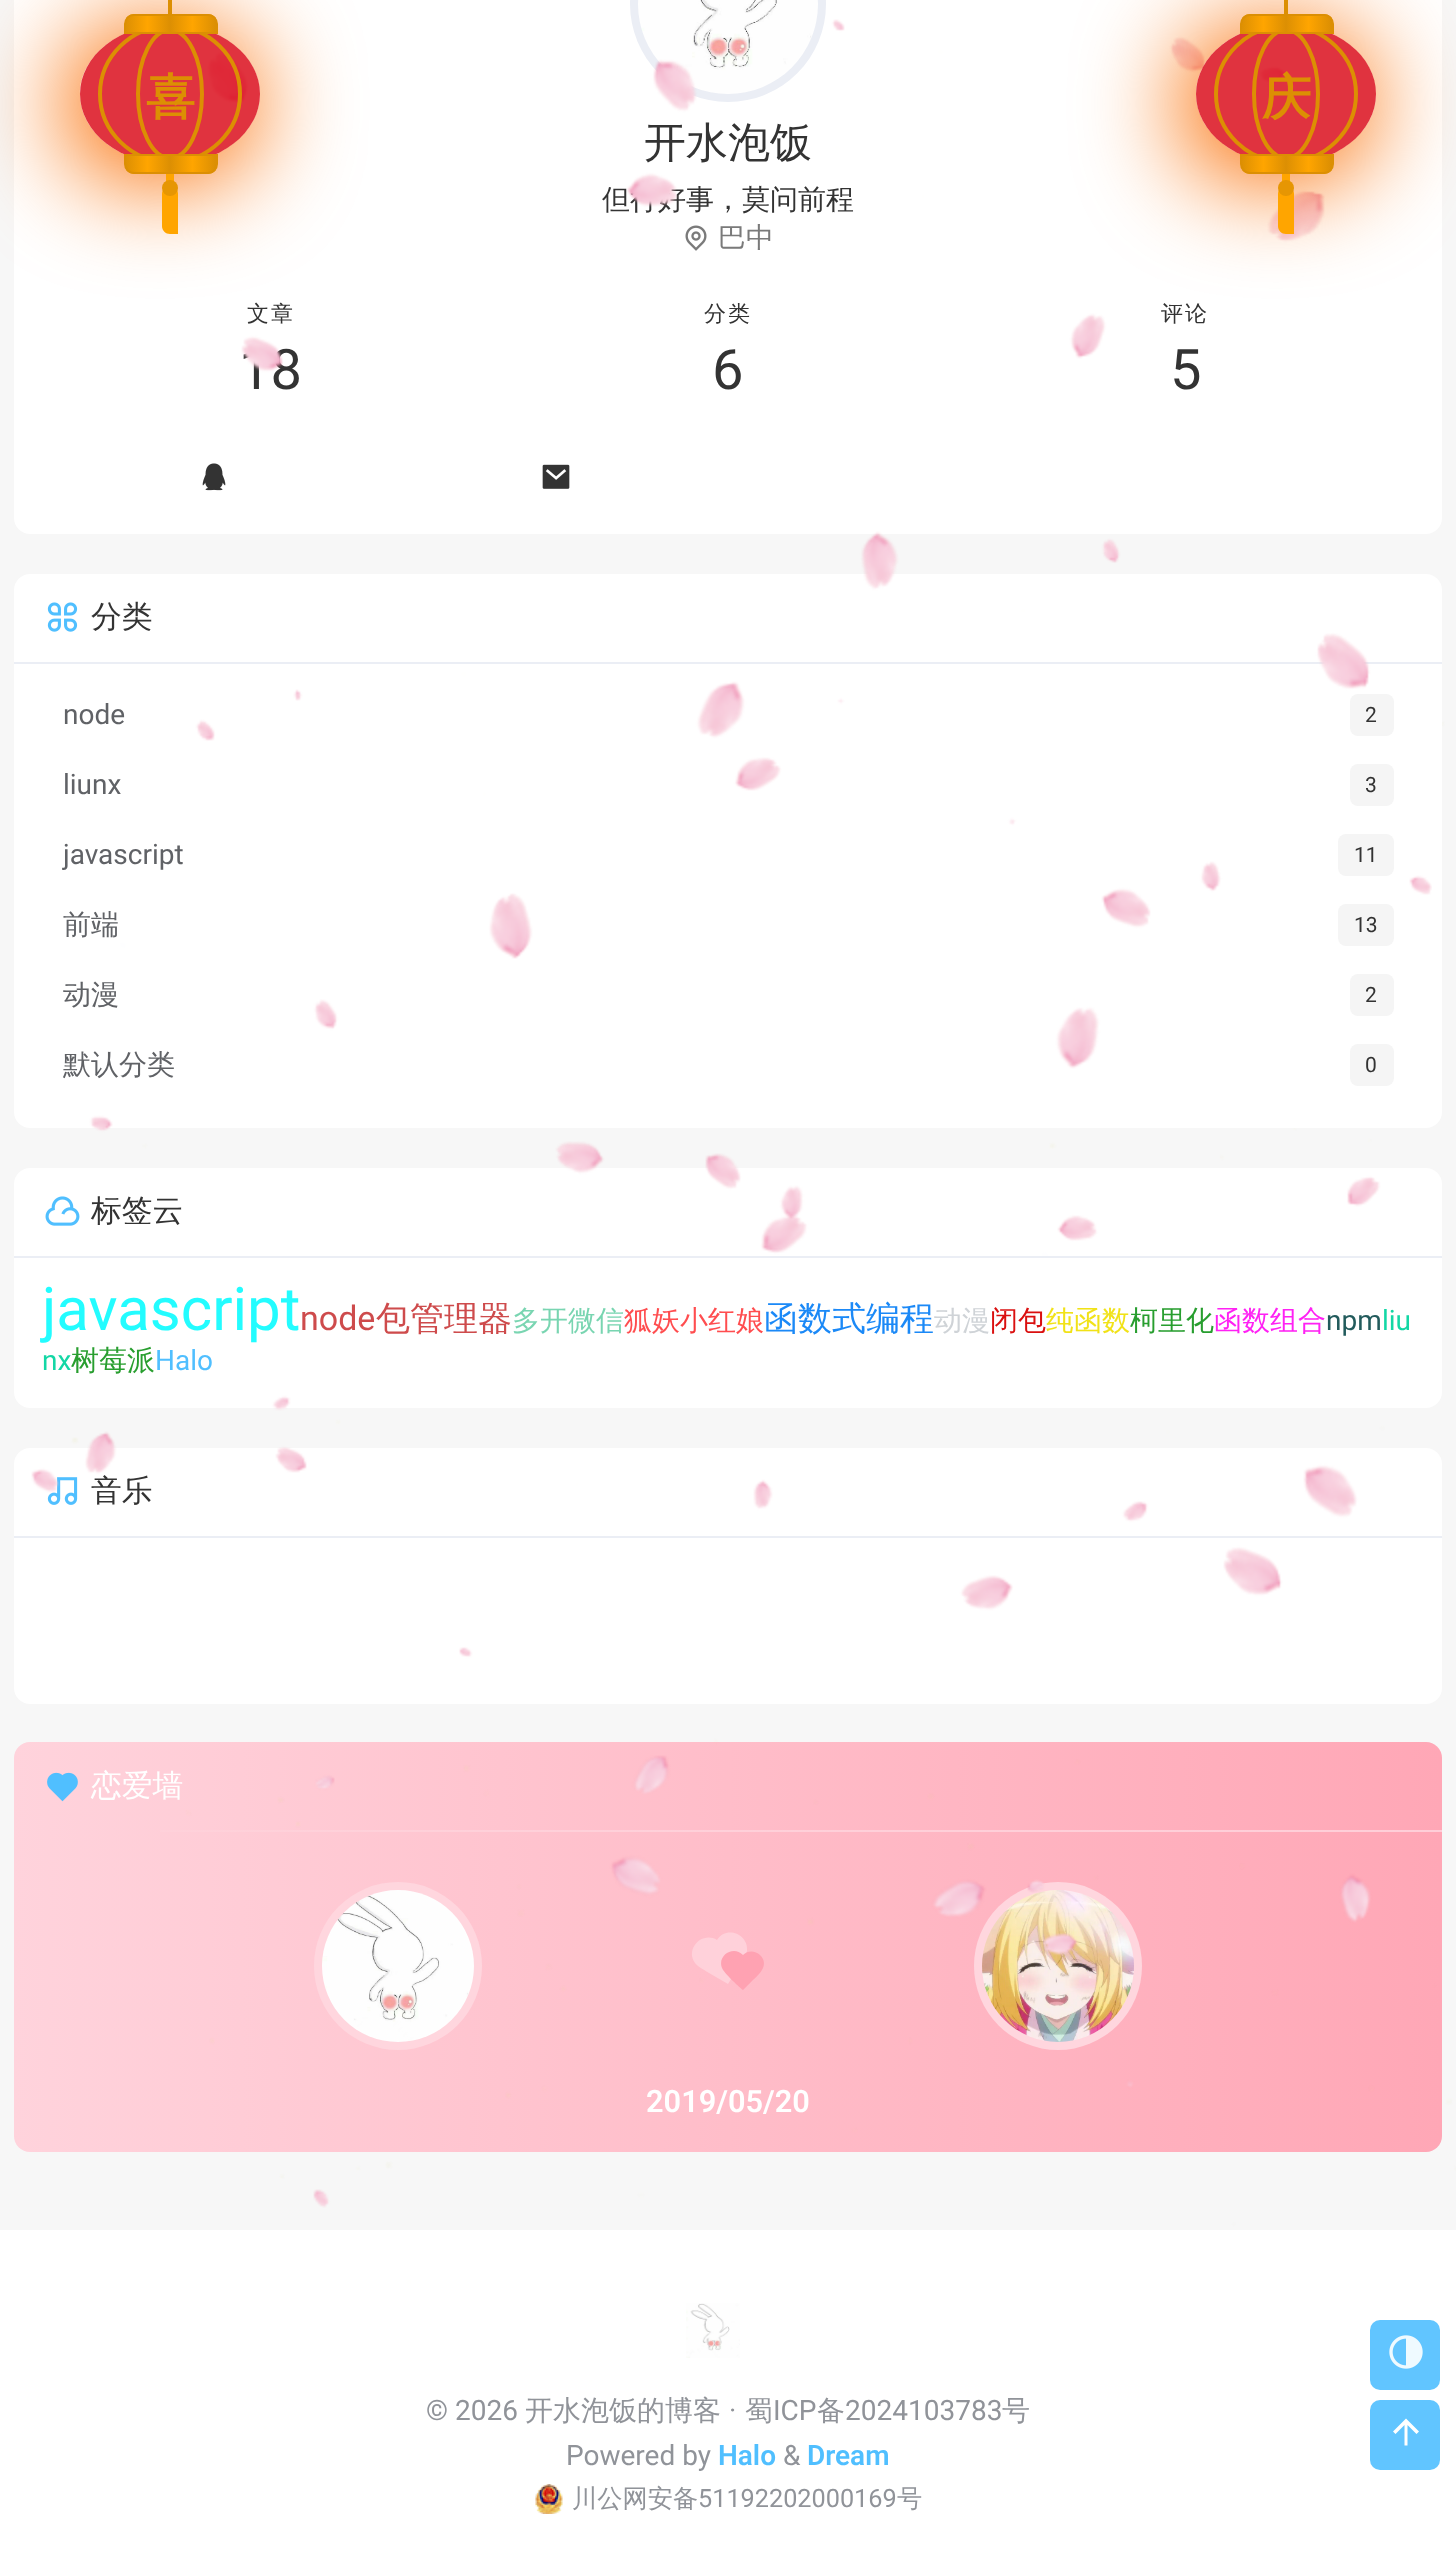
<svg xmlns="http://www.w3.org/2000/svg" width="1456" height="2559">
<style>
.a{font:500 42px WenQuanYi Zen Hei;fill:#333}
.b{font:500 28px WenQuanYi Zen Hei;fill:#333}
.c{font:500 28px WenQuanYi Zen Hei;fill:#7a7a7a}
.d{font:500 22px WenQuanYi Zen Hei;letter-spacing:2px;fill:#333}
.e{font:56px Roboto;fill:#333}
.f{font:500 30.75px WenQuanYi Zen Hei;fill:#333}
.g{font:28px Roboto;fill:#606266}
.h{font:21px Roboto;fill:#333}
.i{font:500 28px WenQuanYi Zen Hei;fill:#606266}
.j{font:60px Roboto;fill:#23fcff}
.k{font:34px Roboto;fill:#ce4b4c}
.l{font:500 34px WenQuanYi Zen Hei;fill:#ce4b4c}
.m{font:500 28px WenQuanYi Zen Hei;fill:#79d5b1}
.n{font:500 28px WenQuanYi Zen Hei;fill:#ff4d4f}
.o{font:500 34px WenQuanYi Zen Hei;fill:#1b89f7}
.p{font:500 28px WenQuanYi Zen Hei;fill:#cfd3d7}
.q{font:500 28px WenQuanYi Zen Hei;fill:#da1010}
.r{font:500 28px WenQuanYi Zen Hei;fill:#f1e217}
.s{font:500 28px WenQuanYi Zen Hei;fill:#289e2f}
.t{font:500 28px WenQuanYi Zen Hei;fill:#ff21f4}
.u{font:28px Roboto;fill:#225b5c}
.v{font:28px Roboto;fill:#13d7a5}
.w{font:28px Roboto;fill:#50bfff}
.x{font:500 30.75px WenQuanYi Zen Hei;fill:#fff}
.y{font:600 30.75px Roboto;fill:#fff}
.z{font:bold 49px WenQuanYi Zen Hei;fill:#dc8f03}
.a1{font:28px Roboto;fill:#909399}
.b1{font:500 28px WenQuanYi Zen Hei;fill:#909399}
.c1{font:600 28px Roboto;fill:#50bfff}
.d1{font:500 25.25px WenQuanYi Zen Hei;fill:#909399}
.e1{font:25.25px Roboto;fill:#909399}
</style>
<defs>
<linearGradient id="g1" gradientUnits="userSpaceOnUse" x1="14" y1="1947" x2="1442" y2="1947"><stop offset="0" stop-color="#ffd3dc"/><stop offset="1" stop-color="#ffa7b6"/></linearGradient>
<linearGradient id="g2" gradientUnits="userSpaceOnUse" x1="14" y1="1947" x2="1442" y2="1947"><stop offset="0" stop-color="#ffd1da"/><stop offset="1" stop-color="#ffced8"/></linearGradient>
<clipPath id="clip1"><path d="M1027 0h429v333h-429zm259 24c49.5 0 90 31.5 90 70c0 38.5-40.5 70-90 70c-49.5 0-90-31.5-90-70c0-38.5 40.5-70 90-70z" clip-rule="evenodd"/></clipPath>
<clipPath id="clip2"><path d="M1240 154h94v10c0 5.5-4.5 10-10 10h-74c-5.5 0-10-4.5-10-10z"/></clipPath>
<linearGradient id="g3" gradientUnits="userSpaceOnUse" x1="1241" y1="164" x2="1331" y2="164"><stop offset="0" stop-color="#dc8f03"/><stop offset="0.25" stop-color="#ffa500"/><stop offset="0.5" stop-color="#dc8f03"/><stop offset="0.75" stop-color="#ffa500"/><stop offset="1" stop-color="#dc8f03"/></linearGradient>
<clipPath id="clip3"><path d="M1250 14h74c5.5 0 10 4.5 10 10v10h-94v-10c0-5.5 4.5-10 10-10z"/></clipPath>
<linearGradient id="g4" gradientUnits="userSpaceOnUse" x1="1241" y1="24" x2="1331" y2="24"><stop offset="0" stop-color="#dc8f03"/><stop offset="0.25" stop-color="#ffa500"/><stop offset="0.5" stop-color="#dc8f03"/><stop offset="0.75" stop-color="#ffa500"/><stop offset="1" stop-color="#dc8f03"/></linearGradient>
<clipPath id="clip4"><path d="M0 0h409v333h-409zm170 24c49.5 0 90 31.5 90 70c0 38.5-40.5 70-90 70c-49.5 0-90-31.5-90-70c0-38.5 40.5-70 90-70z" clip-rule="evenodd"/></clipPath>
<clipPath id="clip5"><path d="M124 154h94v10c0 5.5-4.5 10-10 10h-74c-5.5 0-10-4.5-10-10z"/></clipPath>
<linearGradient id="g5" gradientUnits="userSpaceOnUse" x1="125" y1="164" x2="215" y2="164"><stop offset="0" stop-color="#dc8f03"/><stop offset="0.25" stop-color="#ffa500"/><stop offset="0.5" stop-color="#dc8f03"/><stop offset="0.75" stop-color="#ffa500"/><stop offset="1" stop-color="#dc8f03"/></linearGradient>
<clipPath id="clip6"><path d="M134 14h74c5.5 0 10 4.5 10 10v10h-94v-10c0-5.5 4.5-10 10-10z"/></clipPath>
<linearGradient id="g6" gradientUnits="userSpaceOnUse" x1="125" y1="24" x2="215" y2="24"><stop offset="0" stop-color="#dc8f03"/><stop offset="0.25" stop-color="#ffa500"/><stop offset="0.5" stop-color="#dc8f03"/><stop offset="0.75" stop-color="#ffa500"/><stop offset="1" stop-color="#dc8f03"/></linearGradient>
</defs>
<rect width="100%" height="100%" fill="#f7f7f7"/>
<rect fill="url(#g1)" x="14" y="1742" width="1428" height="410" rx="16"/>
<path fill="url(#g2)" d="M160 1830h1282v2H160z"/>
<image href="16.png" x="68" y="2420" width="1388" height="139"/>
<image href="2.png" x="71" y="45" width="1385" height="2459"/>
<rect fill="#fffffff0" x="14" y="-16" width="1428" height="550" rx="16"/>
<circle fill="#ebeef5" cx="728" cy="4" r="98"/>
<image href="3.png" x="638" y="0" width="180" height="94"/>
<image href="4.png" x="685" y="225" width="22" height="26"/>
<image href="5.png" x="202" y="463" width="24" height="28"/>
<image href="6.png" x="542" y="464" width="28" height="25"/>
<rect fill="#fffffff0" x="14" y="574" width="1428" height="554" rx="16"/>
<path fill="#ebeef5" d="M14 662h1428v2H14z"/>
<image href="7.png" x="47" y="602" width="31" height="30"/>
<rect fill="#f5f5f5" x="1350" y="694" width="44" height="42" rx="8"/>
<rect fill="#f5f5f5" x="1350" y="764" width="44" height="42" rx="8"/>
<rect fill="#f5f5f5" x="1338" y="834" width="56" height="42" rx="8"/>
<rect fill="#f5f5f5" x="1338" y="904" width="56" height="42" rx="8"/>
<rect fill="#f5f5f5" x="1350" y="974" width="44" height="42" rx="8"/>
<rect fill="#f5f5f5" x="1350" y="1044" width="44" height="42" rx="8"/>
<rect fill="#fffffff0" x="14" y="1168" width="1428" height="240" rx="16"/>
<path fill="#ebeef5" d="M14 1256h1428v2H14z"/>
<image href="8.png" x="45" y="1196" width="35" height="30"/>
<rect fill="#fffffff0" x="14" y="1448" width="1428" height="256" rx="16"/>
<path fill="#ebeef5" d="M14 1536h1428v2H14z"/>
<image href="9.png" x="47" y="1477" width="31" height="28"/>
<image href="10.png" x="47" y="1772" width="31" height="30"/>
<circle fill="#ffd6de" cx="398" cy="1966" r="84"/>
<image href="11.png" x="322" y="1890" width="152" height="152"/>
<path fill="#ffd1da" d="M736 1971c4-6 10-14 11-20c2-17-21-26-30-11c-15-9-32 9-22 23c4 5 10 7 14 10l19 11z"/>
<path fill="#ffa2b2" d="M752 1981c3-3 9-8 11-13c5-12-11-22-20-13c-10-10-26 1-21 13c2 5 16 18 21 22z"/>
<circle fill="#ffd6de" cx="1058" cy="1966" r="84"/>
<image href="12.png" x="982" y="1890" width="152" height="152"/>
<path fill="#fffffff0" d="M0 2230h1456v329H0z"/>
<image href="13.png" x="686" y="2303" width="54" height="55"/>
<image href="14.png" x="535" y="2484" width="28" height="30"/>
<rect fill="#61c5ff" x="1370" y="2320" width="70" height="70" rx="10"/>
<image href="15.png" x="1389" y="2335" width="34" height="34"/>
<rect fill="#61c5ff" x="1370" y="2400" width="70" height="70" rx="10"/>
<path fill="#fff" d="M1407.5 2425v20.5h-3v-20.5l-9 9l-2.5-2.5l13-13l13 13l-2.5 2.5z"/>
<text class="a" x="644" y="157">开水泡饭</text>
<text class="b" x="602" y="209">但行好事，莫问前程</text>
<text class="c" x="718" y="247">巴中</text>
<text class="d" x="247" y="321">文章</text>
<text class="e" x="239" y="389">18</text>
<text class="d" x="704" y="321">分类</text>
<text class="e" x="712" y="389">6</text>
<text class="d" x="1161" y="321">评论</text>
<text class="e" x="1170" y="389">5</text>
<text class="f" x="91" y="627">分类</text>
<text class="g" x="63" y="724">node</text>
<text class="h" x="1365" y="722">2</text>
<text class="g" x="63" y="794">liunx</text>
<text class="h" x="1365" y="792">3</text>
<text class="g" x="63" y="864">javascript</text>
<text class="h" x="1354" y="862">11</text>
<text class="i" x="63" y="934">前端</text>
<text class="h" x="1354" y="932">13</text>
<text class="i" x="63" y="1004">动漫</text>
<text class="h" x="1365" y="1002">2</text>
<text class="i" x="63" y="1074">默认分类</text>
<text class="h" x="1365" y="1072">0</text>
<text class="f" x="91" y="1221">标签云</text>
<text class="j" x="42" y="1330">javascript</text>
<text class="k" x="300" y="1330">node</text>
<text class="l" x="376" y="1330">包管理器</text>
<text class="m" x="512" y="1330">多开微信</text>
<text class="n" x="624" y="1330">狐妖小红娘</text>
<text class="o" x="764" y="1330">函数式编程</text>
<text class="p" x="934" y="1330">动漫</text>
<text class="q" x="990" y="1330">闭包</text>
<text class="r" x="1046" y="1330">纯函数</text>
<text class="s" x="1130" y="1330">柯里化</text>
<text class="t" x="1214" y="1330">函数组合</text>
<text class="u" x="1326" y="1330">npm</text>
<text class="v" x="1382" y="1330">liu</text>
<text class="v" x="42" y="1370">nx</text>
<text class="s" x="71" y="1370">树莓派</text>
<text class="w" x="155" y="1370">Halo</text>
<text class="f" x="91" y="1501">音乐</text>
<text class="x" x="91" y="1796">恋爱墙</text>
<text class="y" x="646" y="2112">2019/05/20</text>
<image href="1.png" x="31" y="19" width="1401" height="2189"/>
<g clip-path="url(#clip1)">
<rect fill="#fa6c00" filter="blur(50px)" x="1178" y="26" width="196" height="156" rx="78"/>
</g>
<ellipse fill="#d8000fcc" cx="1286" cy="94" rx="90" ry="70"/>
<path fill="none" stroke="#dc8f03" stroke-width="4" d="M1286 26c38.5 0 70 30.5 70 68c0 37.5-31.5 68-70 68c-38.5 0-70-30.5-70-68c0-37.5 31.5-68 70-68z"/>
<path fill="none" stroke="#dc8f03" stroke-width="4" d="M1286 30c17.5 0 32 28.5 32 64c0 35.5-14.5 64-32 64c-17.5 0-32-28.5-32-64c0-35.5 14.5-64 32-64z"/>
<g clip-path="url(#clip2)">
<path fill="url(#g3)" d="M1242 156h90v18H1242z"/>
</g>
<path fill="none" stroke="#dc8f03" stroke-width="2" d="M1241 155h92v9c0 5-4 9-9 9h-74c-5 0-9-4-9-9z"/>
<path fill="#ffa500" d="M1282 174h8v14H1282z"/>
<path fill="#ffa500" d="M1286 186c4.5 0 8 3.5 8 8v40h-8c-4.5 0-8-3.5-8-8v-32c0-4.5 3.5-8 8-8z"/>
<circle fill="#e69603" cx="1286" cy="188" r="8"/>
<path fill="#dc8f03" d="M1284 0h4v14H1284z"/>
<g clip-path="url(#clip3)">
<path fill="url(#g4)" d="M1242 14h90v18H1242z"/>
</g>
<path fill="none" stroke="#dc8f03" stroke-width="2" d="M1250 15h74c5 0 9 4 9 9v9h-92v-9c0-5 4-9 9-9z"/>
<text class="z" x="1262" y="114">庆</text>
<g clip-path="url(#clip4)">
<rect fill="#fa6c00" filter="blur(50px)" x="62" y="26" width="196" height="156" rx="78"/>
</g>
<ellipse fill="#d8000fcc" cx="170" cy="94" rx="90" ry="70"/>
<path fill="none" stroke="#dc8f03" stroke-width="4" d="M170 26c38.5 0 70 30.5 70 68c0 37.5-31.5 68-70 68c-38.5 0-70-30.5-70-68c0-37.5 31.5-68 70-68z"/>
<path fill="none" stroke="#dc8f03" stroke-width="4" d="M170 30c17.5 0 32 28.5 32 64c0 35.5-14.5 64-32 64c-17.5 0-32-28.5-32-64c0-35.5 14.5-64 32-64z"/>
<g clip-path="url(#clip5)">
<path fill="url(#g5)" d="M126 156h90v18H126z"/>
</g>
<path fill="none" stroke="#dc8f03" stroke-width="2" d="M125 155h92v9c0 5-4 9-9 9h-74c-5 0-9-4-9-9z"/>
<path fill="#ffa500" d="M166 174h8v14H166z"/>
<path fill="#ffa500" d="M170 186c4.5 0 8 3.5 8 8v40h-8c-4.5 0-8-3.5-8-8v-32c0-4.5 3.5-8 8-8z"/>
<circle fill="#e69603" cx="170" cy="188" r="8"/>
<path fill="#dc8f03" d="M168 0h4v14H168z"/>
<g clip-path="url(#clip6)">
<path fill="url(#g6)" d="M126 14h90v18H126z"/>
</g>
<path fill="none" stroke="#dc8f03" stroke-width="2" d="M134 15h74c5 0 9 4 9 9v9h-92v-9c0-5 4-9 9-9z"/>
<text class="z" x="146" y="114">喜</text>
<text class="a1" x="426" y="2420">© 2026</text>
<text class="b1" x="525" y="2420">开水泡饭的博客</text>
<text class="a1" x="729" y="2420">·</text>
<text class="b1" x="745" y="2420">蜀</text>
<text class="a1" x="773" y="2420">ICP</text>
<text class="b1" x="817" y="2420">备</text>
<text class="a1" x="845" y="2420">2024103783</text>
<text class="b1" x="1002" y="2420">号</text>
<text class="a1" x="566" y="2465">Powered by</text>
<text class="c1" x="718" y="2465">Halo</text>
<text class="a1" x="783" y="2465">&amp;</text>
<text class="c1" x="807" y="2465">Dream</text>
<text class="d1" x="572" y="2507">川公网安备</text>
<text class="e1" x="698" y="2507">51192202000169</text>
<text class="d1" x="897" y="2507">号</text>
</svg>
